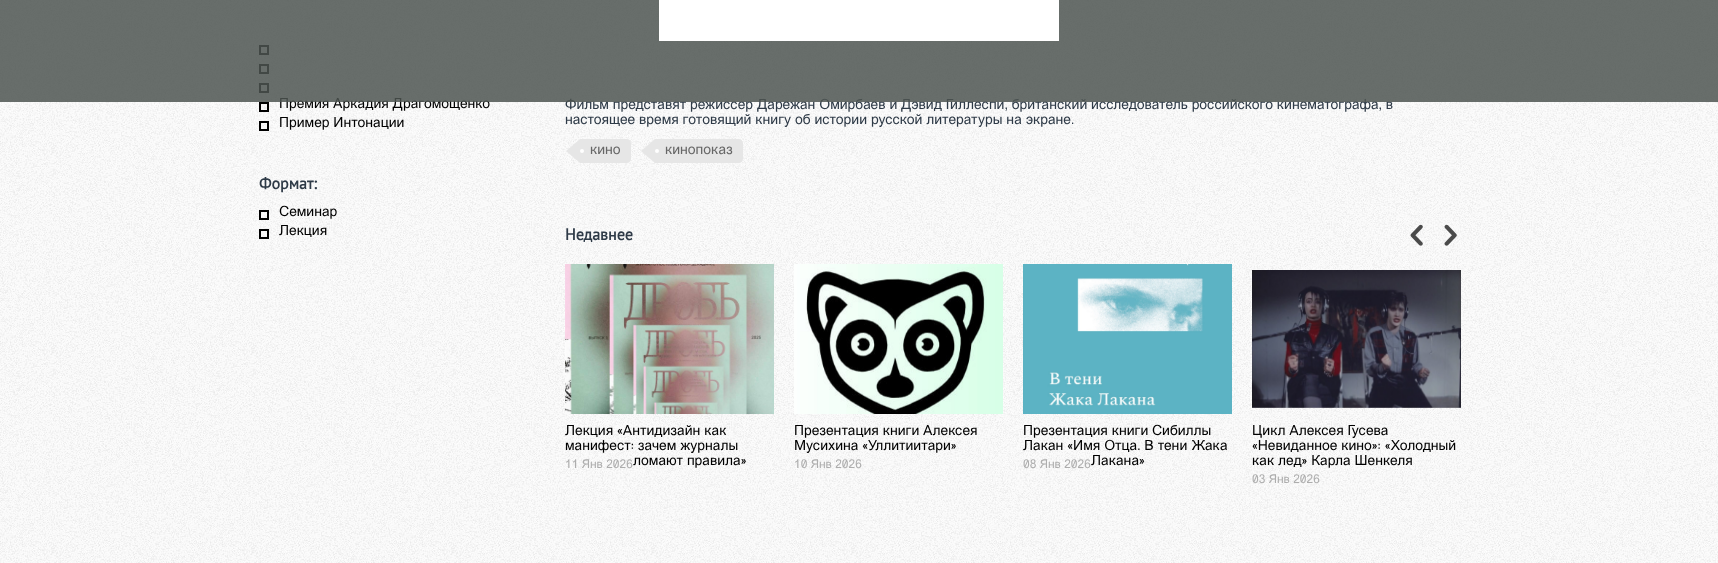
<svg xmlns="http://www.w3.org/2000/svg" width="1718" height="563">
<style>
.a{font:14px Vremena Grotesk;fill:#000}
.b{font:bold 16px PT Sans;fill:#2e3a47}
.c{font:14px Vremena Grotesk;fill:#2e3a47}
.d{font:14px Vremena Grotesk;fill:#676767}
.e{font:12px Vremena Grotesk;fill:#adadad}
</style>
<rect width="100%" height="100%" fill="#fff"/>
<image href="1.png" x="0" y="0" width="1718" height="563"/>
<image href="2.png" x="259" y="45" width="10" height="10"/>
<image href="3.png" x="259" y="64" width="10" height="10"/>
<image href="4.png" x="259" y="83" width="10" height="10"/>
<image href="5.png" x="259" y="102" width="10" height="10"/>
<image href="6.png" x="259" y="121" width="10" height="10"/>
<image href="7.png" x="259" y="210" width="10" height="10"/>
<image href="8.png" x="259" y="229" width="10" height="10"/>
<path fill="#e6e6e6" d="M580 139h47c2 0 4 2 4 4v16c0 2-2 4-4 4h-47z"/>
<path fill="#e6e6e6" d="M580 139v24l-14-12z"/>
<circle fill="#fff" cx="582" cy="151" r="2"/>
<path fill="#e6e6e6" d="M655 139h84c2 0 4 2 4 4v16c0 2-2 4-4 4h-84z"/>
<path fill="#e6e6e6" d="M655 139v24l-14-12z"/>
<circle fill="#fff" cx="657" cy="151" r="2"/>
<image href="9.png" x="1410" y="224" width="13" height="22"/>
<image href="10.png" x="1444" y="224" width="13" height="22"/>
<image href="11.png" x="565" y="264" width="209" height="150"/>
<image href="12.png" x="794" y="264" width="209" height="150"/>
<image href="13.png" x="1023" y="264" width="209" height="150"/>
<image href="14.png" x="1252" y="270" width="209" height="138"/>
<text class="a" x="279" y="108">Премия Аркадия Драгомощенко</text>
<text class="a" x="279" y="127">Пример Интонации</text>
<text class="b" x="259" y="189">Формат:</text>
<text class="a" x="279" y="216">Семинар</text>
<text class="a" x="279" y="235">Лекция</text>
<text class="c" x="565" y="109">Фильм представят режиссер Дарежан Омирбаев и Дэвид Гиллеспи, британский исследователь российского кинематографа, в</text>
<path fill="#4e5551d9" d="M0 0h1718v102H0z"/>
<path fill="#fff" d="M659 0h400v41H659z"/>
<text class="c" x="565" y="124">настоящее время готовящий книгу об истории русской литературы на экране.</text>
<text class="d" x="590" y="154">кино</text>
<text class="d" x="665" y="154">кинопоказ</text>
<text class="b" x="565" y="240">Недавнее</text>
<text class="a" x="565" y="435">Лекция «Антидизайн как</text>
<text class="a" x="565" y="450">манифест: зачем журналы</text>
<text class="e" x="565" y="468">11 Янв 2026</text>
<text class="a" x="633" y="465">ломают правила»</text>
<text class="a" x="794" y="435">Презентация книги Алексея</text>
<text class="a" x="794" y="450">Мусихина «Уллитиитари»</text>
<text class="e" x="794" y="468">10 Янв 2026</text>
<text class="a" x="1023" y="435">Презентация книги Сибиллы</text>
<text class="a" x="1023" y="450">Лакан «Имя Отца. В тени Жака</text>
<text class="e" x="1023" y="468">08 Янв 2026</text>
<text class="a" x="1091" y="465">Лакана»</text>
<text class="a" x="1252" y="435">Цикл Алексея Гусева</text>
<text class="a" x="1252" y="450">«Невиданное кино»: «Холодный</text>
<text class="a" x="1252" y="465">как лед» Карла Шенкеля</text>
<text class="e" x="1252" y="483">03 Янв 2026</text>
</svg>
